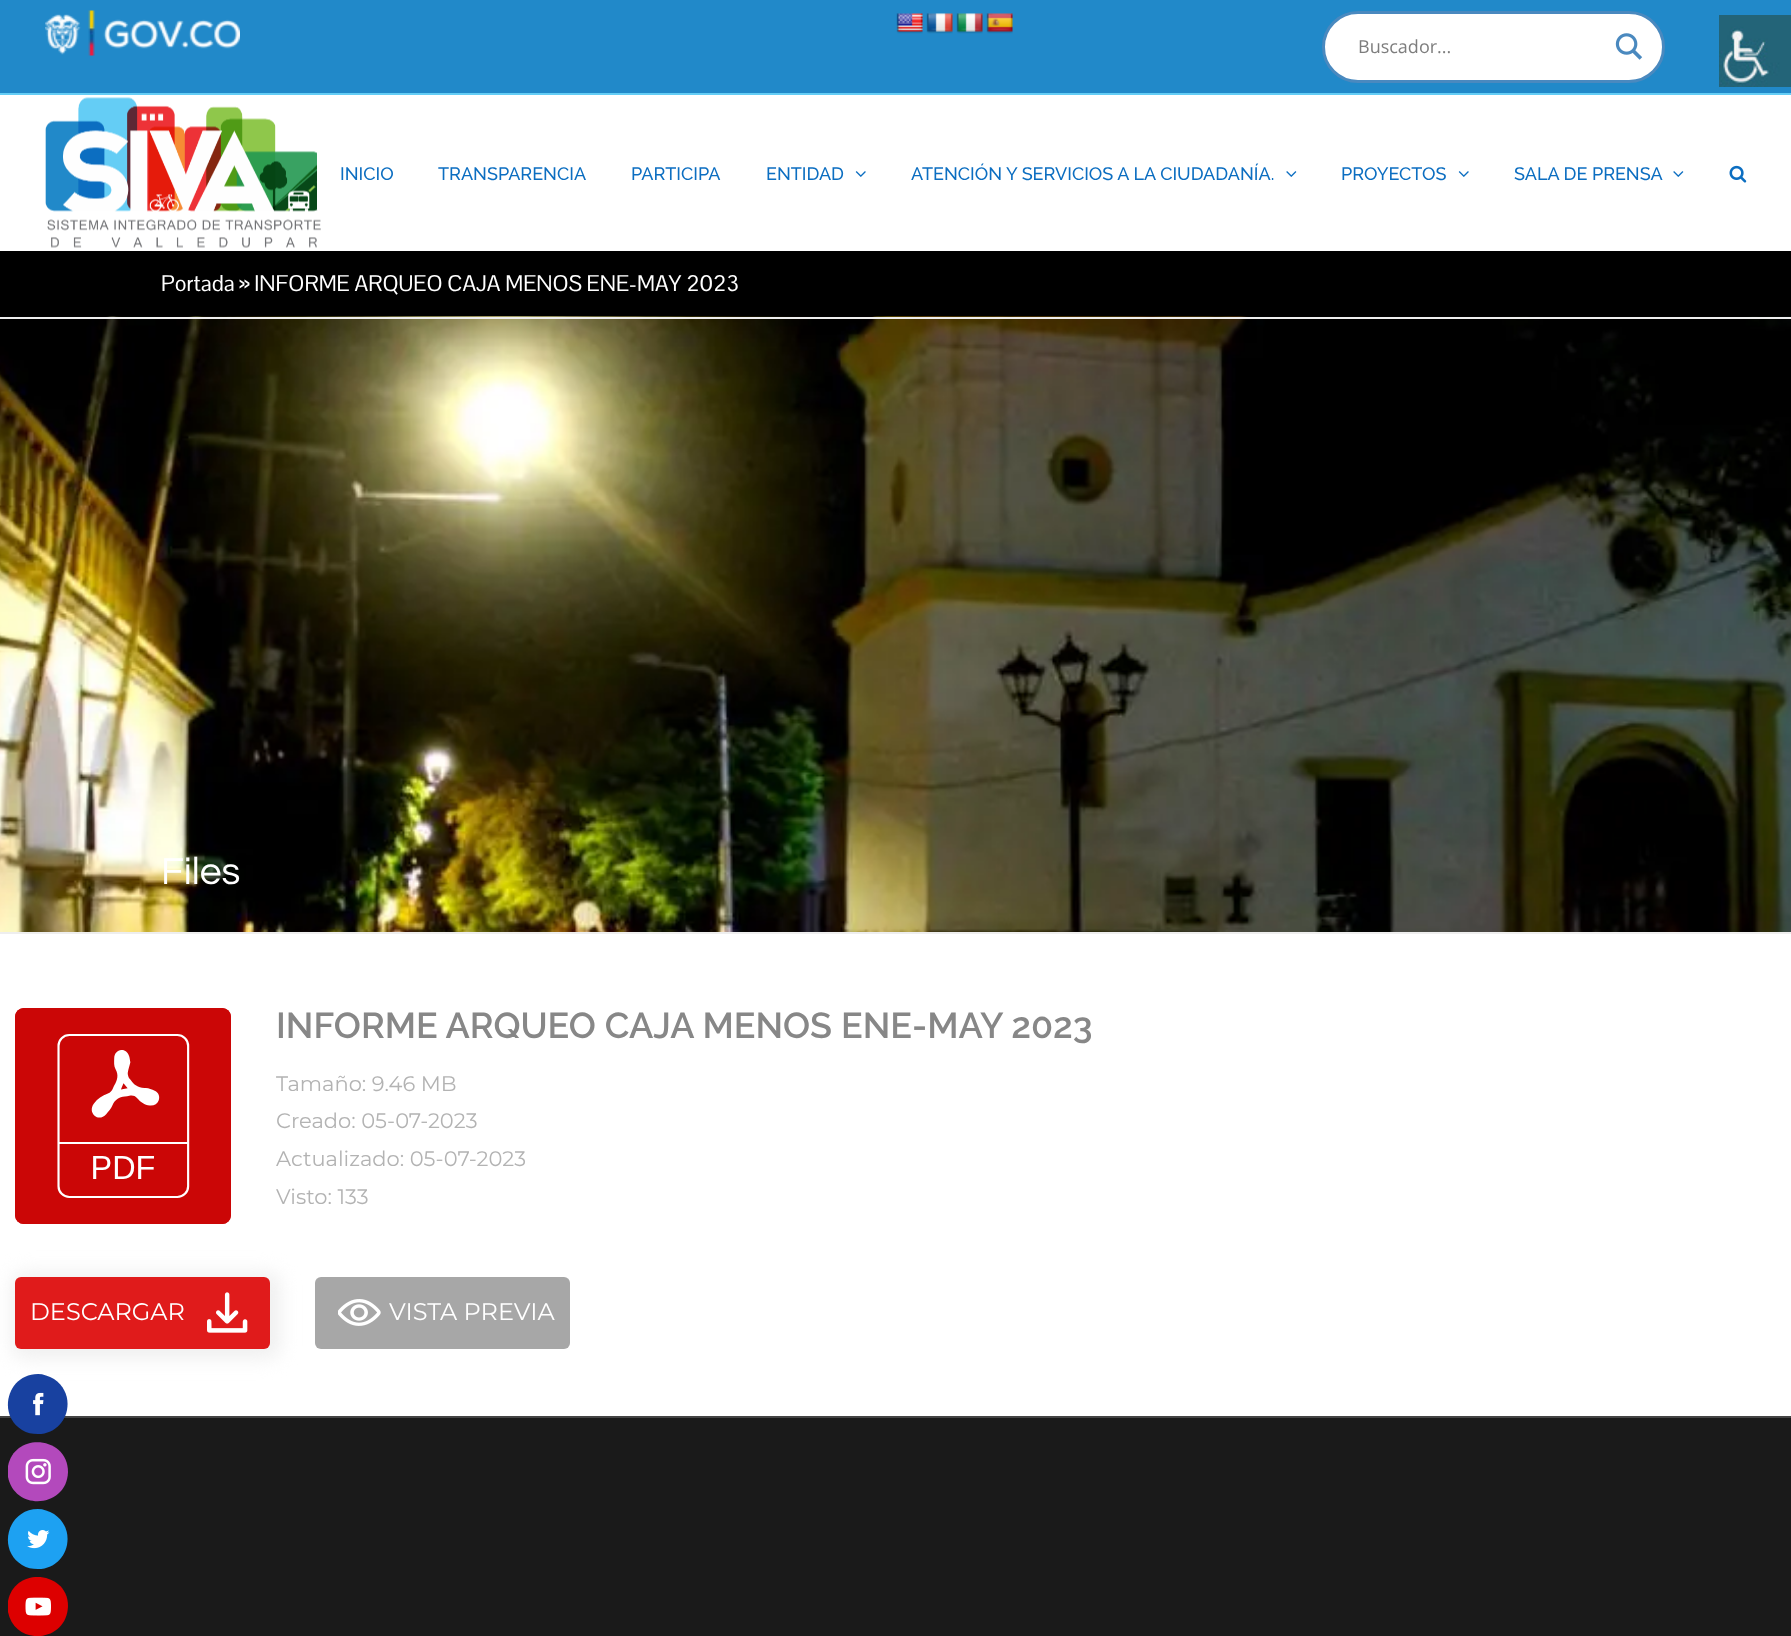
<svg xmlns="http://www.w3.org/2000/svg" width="1791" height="1636">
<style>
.a{font:18px Open Sans;fill:#7d7d7d}
.b{font:500 18px Raleway;fill:#0c6ec1}
.c{font:22.15px Pontano Sans;fill:#fff}
.d{font:39px Questrial;fill:#fff}
.e{font:600 36px Raleway;fill:#878787}
.f{font:21px Montserrat;fill:#b3b3b3}
.g{font:24px Montserrat;fill:#fff}
</style>
<rect width="100%" height="100%" fill="#fff"/>
<path fill="#2189c9" d="M0 0h1791v93H0z"/>
<path fill="#64cdf5" d="M0 93h1791v2H0z"/>
<image href="1.png" x="45" y="10" width="195" height="46"/>
<image href="2.png" x="896" y="13" width="27" height="21"/>
<image href="3.png" x="926" y="13" width="27" height="21"/>
<image href="4.png" x="956" y="13" width="27" height="21"/>
<image href="5.png" x="986" y="13" width="27" height="21"/>
<rect fill="#fff" stroke="#4a89bf" stroke-width="3" x="1323.5" y="12.5" width="340" height="69" rx="34.5"/>
<image href="6.png" x="1615" y="33" width="28" height="27"/>
<image href="7.png" x="45" y="97" width="276" height="151"/>
<path fill="#fff" d="M317 152h4v58H317z"/>
<image href="8.png" x="855" y="171" width="11" height="6"/>
<image href="9.png" x="1286" y="171" width="11" height="6"/>
<image href="8.png" x="1458" y="171" width="11" height="6"/>
<image href="9.png" x="1673" y="171" width="11" height="6"/>
<image href="10.png" x="1729" y="165" width="18" height="18"/>
<path fill="#000" d="M0 251h1791v65H0z"/>
<image href="11.png" x="0" y="316" width="1791" height="616"/>
<path fill="#eee" d="M0 317h1791v2H0z"/>
<path fill="#eee" d="M0 932h1791v2H0z"/>
<rect fill="#cb0606" x="15" y="1008" width="216" height="216" rx="9"/>
<image href="12.png" x="15" y="1008" width="216" height="216"/>
<rect fill="#f0f0f0" filter="blur(9px)" x="11" y="1272" width="270" height="87" rx="14"/>
<rect fill="#e01b1b" x="15" y="1277" width="255" height="72" rx="6"/>
<image href="13.png" x="207" y="1292" width="41" height="41"/>
<rect fill="#a7a7a7" x="315" y="1277" width="255" height="72" rx="6"/>
<image href="14.png" x="338" y="1299" width="43" height="27"/>
<path fill="#1a1a1a" d="M0 1418h1791v218H0z"/>
<path fill="#444" d="M0 1416h1791v2H0z"/>
<image href="15.png" x="1719" y="15" width="72" height="72"/>
<path fill="#1841a0" d="M38 1374c-31 0-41 41-16 56c5 3 10 4 16 4c29 0 41-38 16-55c-5-3-11-5-16-5z"/>
<image href="16.png" x="33" y="1392" width="11" height="24"/>
<path fill="#b349bc" d="M8 1466c7-35 60-30 60 6c-1 36-53 40-60 5z"/>
<image href="17.png" x="25" y="1458" width="26" height="27"/>
<path fill="#1da1f2" d="M38 1509c-31 0-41 41-16 56c5 3 10 4 16 4c29 0 41-38 16-55c-5-3-11-5-16-5z"/>
<image href="18.png" x="27" y="1530" width="23" height="19"/>
<path fill="#d00" d="M8 1601c7-35 60-30 60 5c-1 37-53 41-60 6z"/>
<image href="19.png" x="25" y="1597" width="26" height="19"/>
<text class="a" x="1358" y="53">Buscador...</text>
<text class="b" x="340" y="180">INICIO</text>
<text class="b" x="438" y="180">TRANSPARENCIA</text>
<text class="b" x="631" y="180">PARTICIPA</text>
<text class="b" x="766" y="180">ENTIDAD</text>
<text class="b" x="911" y="180">ATENCIÓN Y SERVICIOS A LA CIUDADANÍA.</text>
<text class="b" x="1341" y="180">PROYECTOS</text>
<text class="b" x="1514" y="180">SALA DE PRENSA</text>
<text class="c" x="161" y="291">Portada » INFORME ARQUEO CAJA MENOS ENE-MAY 2023</text>
<text class="d" x="161" y="884">Files</text>
<text class="e" x="276" y="1038">INFORME ARQUEO CAJA MENOS ENE-MAY 2023</text>
<text class="f" x="276" y="1091">Tamaño: 9.46 MB</text>
<text class="f" x="276" y="1128">Creado: 05-07-2023</text>
<text class="f" x="276" y="1166">Actualizado: 05-07-2023</text>
<text class="f" x="276" y="1204">Visto: 133</text>
<text class="g" x="30" y="1320">DESCARGAR</text>
<text class="g" x="389" y="1320">VISTA PREVIA</text>
</svg>
